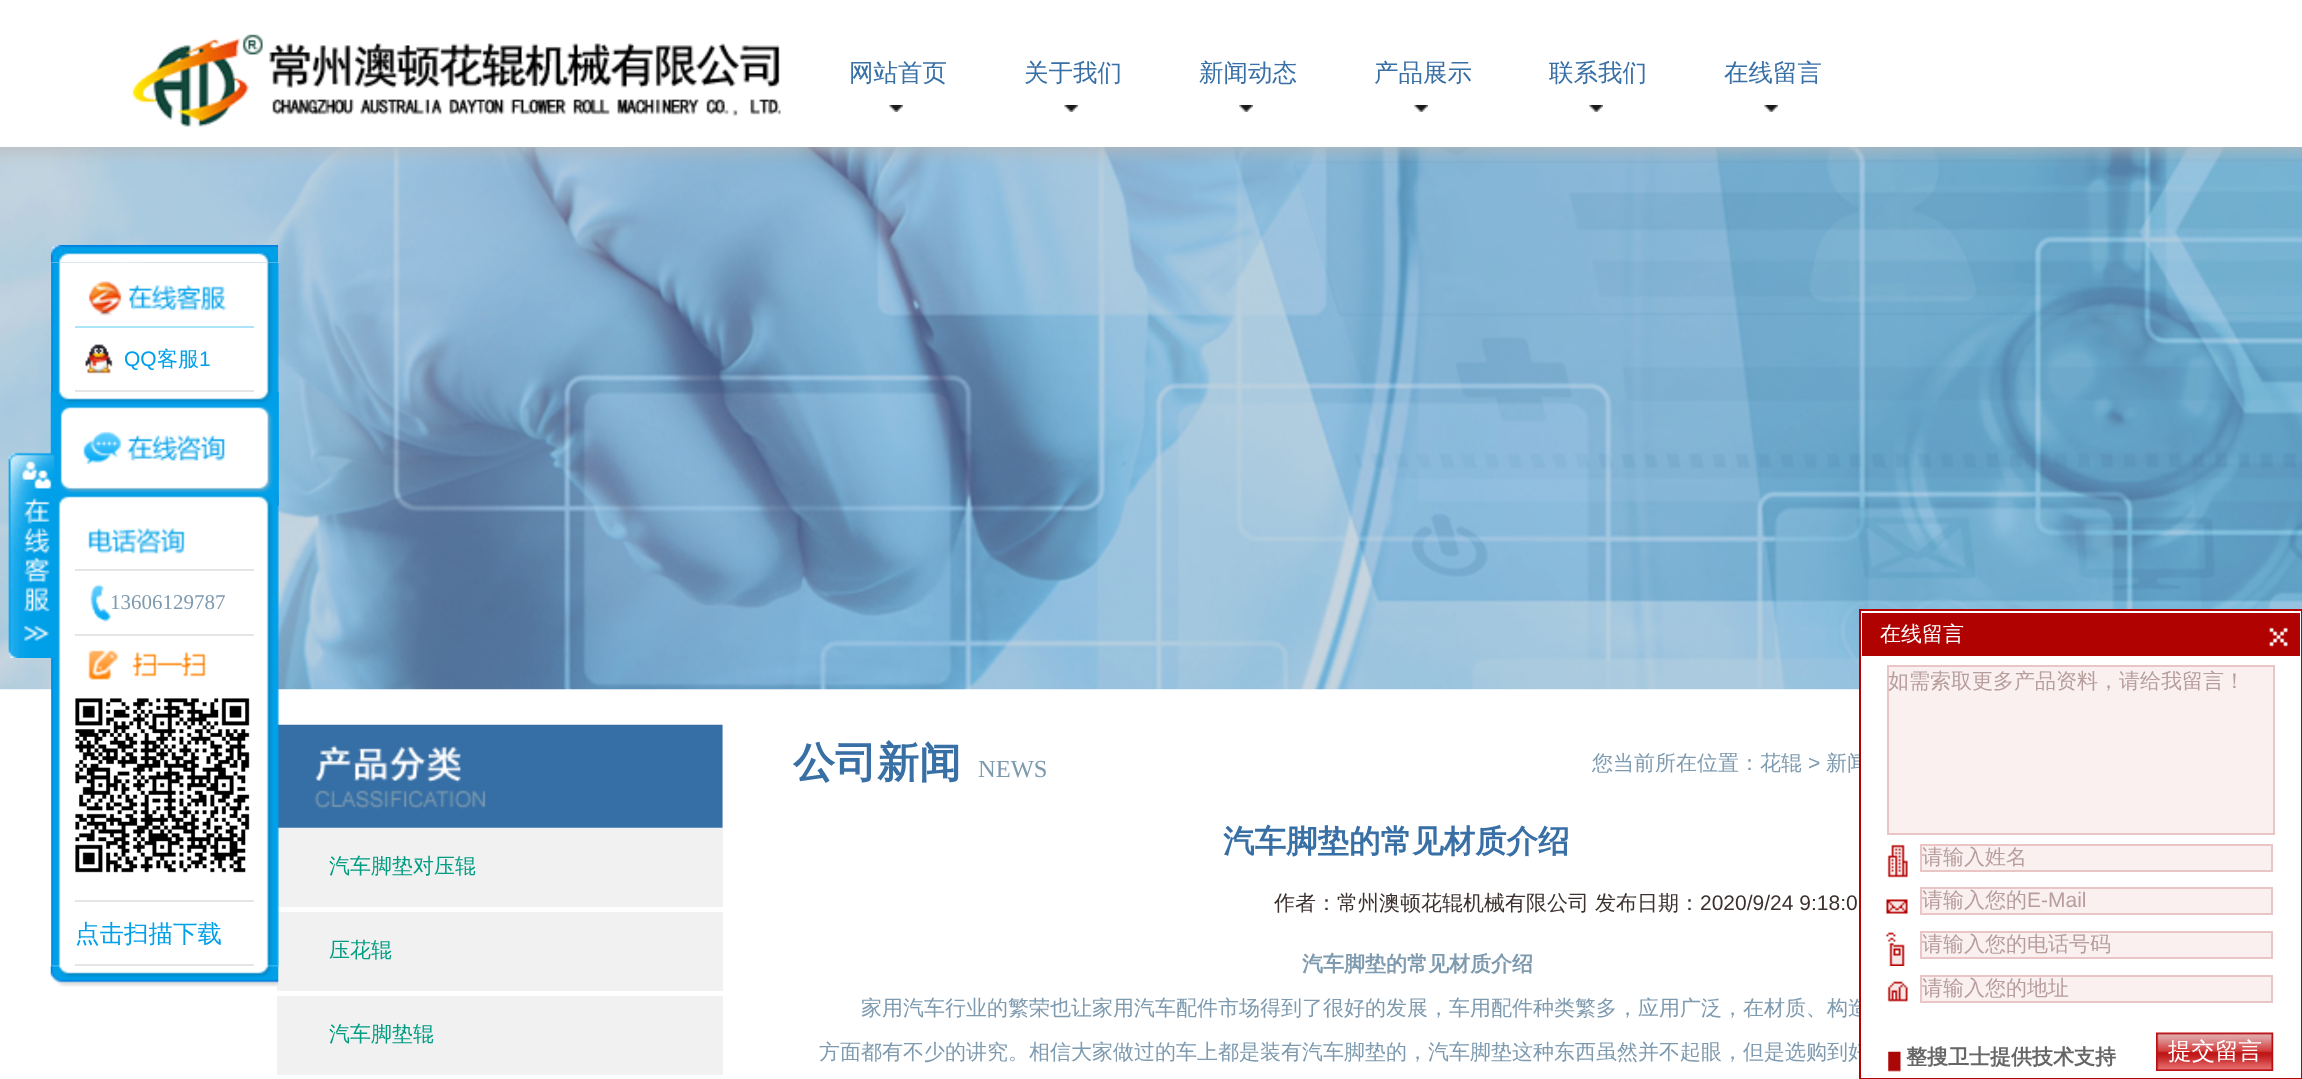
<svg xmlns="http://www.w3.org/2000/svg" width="2302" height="1079">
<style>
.a{font:500 24.5px WenQuanYi Zen Hei;fill:#386fa5}
.b{font:21px Liberation Sans;fill:#00a0e9}
.c{font:500 21px WenQuanYi Zen Hei;fill:#00a0e9}
.d{font:21px Liberation Serif;fill:#7e9aaf}
.e{font:500 24.5px WenQuanYi Zen Hei;fill:#00a0e9}
.f{font:500 21px WenQuanYi Zen Hei;fill:#009d82}
.g{font:bold 42px WenQuanYi Zen Hei;fill:#386fa5}
.h{font:24.5px Liberation Serif;fill:#7e9aaf}
.i{font:500 21px WenQuanYi Zen Hei;fill:#7e9aaf}
.j{font:21px Liberation Sans;fill:#7e9aaf}
.k{font:bold 31.5px WenQuanYi Zen Hei;fill:#386fa5}
.l{font:500 21px WenQuanYi Zen Hei;fill:#3c312f}
.m{font:21px Liberation Sans;fill:#3c312f}
.n{font:bold 21px WenQuanYi Zen Hei;fill:#7e9aaf}
.o{font:500 21px WenQuanYi Zen Hei;fill:#fff}
.p{font:500 21px WenQuanYi Zen Hei;fill:#b89d9d}
.q{font:21px Liberation Sans;fill:#b89d9d}
.r{font:bold 21px WenQuanYi Zen Hei;fill:#666}
.s{font:500 23.5px WenQuanYi Zen Hei;fill:#fff}
</style>
<rect width="100%" height="100%" fill="#fff"/>
<image href="1.png" x="132" y="34" width="649" height="93"/>
<image href="2.png" x="889" y="105" width="14" height="7"/>
<image href="2.png" x="1064" y="105" width="14" height="7"/>
<image href="3.png" x="1239" y="105" width="14" height="7"/>
<image href="2.png" x="1414" y="105" width="14" height="7"/>
<image href="2.png" x="1589" y="105" width="14" height="7"/>
<image href="2.png" x="1764" y="105" width="14" height="7"/>
<image href="4.png" x="0" y="147" width="2302" height="543"/>
<path fill="#f1f1f1" d="M277 912h446v79H277z"/>
<image href="6.png" x="50" y="965" width="229" height="22"/>
<image href="17.png" x="277" y="724" width="446" height="104"/>
<path fill="#f1f1f1" d="M277 828h446v79H277z"/>
<image href="8.png" x="51" y="263" width="228" height="704"/>
<image href="11.png" x="50" y="392" width="229" height="114"/>
<image href="5.png" x="8" y="452" width="47" height="206"/>
<image href="7.png" x="50" y="245" width="228" height="18"/>
<path fill="#ace5f9" d="M75 326h179v2H75z"/>
<image href="9.png" x="88" y="281" width="139" height="35"/>
<path fill="#e6e5e4" d="M75 390h179v2H75z"/>
<image href="10.png" x="85" y="344" width="28" height="30"/>
<image href="12.png" x="59" y="406" width="214" height="87"/>
<path fill="#e6e5e4" d="M75 569h179v2H75z"/>
<image href="13.png" x="88" y="527" width="98" height="27"/>
<path fill="#e6e5e4" d="M75 634h179v2H75z"/>
<image href="14.png" x="90" y="584" width="22" height="38"/>
<image href="15.png" x="88" y="650" width="118" height="30"/>
<path fill="#e6e5e4" d="M75 900h179v2H75z"/>
<image href="16.png" x="75" y="698" width="175" height="175"/>
<path fill="#e6e5e4" d="M75 964h179v2H75z"/>
<path fill="#f1f1f1" d="M277 996h446v79H277z"/>
<text class="a" x="849" y="81">网站首页</text>
<text class="a" x="1024" y="81">关于我们</text>
<text class="a" x="1199" y="81">新闻动态</text>
<text class="a" x="1374" y="81">产品展示</text>
<text class="a" x="1549" y="81">联系我们</text>
<text class="a" x="1724" y="81">在线留言</text>
<text class="b" x="124" y="366">QQ</text>
<text class="c" x="157" y="366">客服</text>
<text class="b" x="199" y="366">1</text>
<text class="d" x="110" y="609">13606129787</text>
<text class="e" x="75" y="942">点击扫描下载</text>
<text class="f" x="329" y="873">汽车脚垫对压辊</text>
<text class="f" x="329" y="957">压花辊</text>
<text class="f" x="329" y="1041">汽车脚垫辊</text>
<text class="g" x="793" y="777">公司新闻</text>
<text class="h" x="978" y="777">NEWS</text>
<text class="i" x="1592" y="770">您当前所在位置：花辊</text>
<text class="j" x="1808" y="770">&gt;</text>
<text class="i" x="1826" y="770">新闻</text>
<text class="k" x="1223" y="852">汽车脚垫的常见材质介绍</text>
<text class="l" x="1274" y="910">作者：常州澳顿花辊机械有限公司</text>
<text class="l" x="1595" y="910">发布日期：</text>
<text class="m" x="1700" y="910">2020/9/24 9:18:0</text>
<text class="n" x="1302" y="971">汽车脚垫的常见材质介绍</text>
<text class="i" x="861" y="1015">家用汽车行业的繁荣也让家用汽车配件市场得到了很好的发展，车用配件种类繁多，应用广泛，在材质、构造</text>
<text class="i" x="819" y="1059">方面都有不少的讲究。相信大家做过的车上都是装有汽车脚垫的，汽车脚垫这种东西虽然并不起眼，但是选购到好</text>
<path fill="#fff" d="M1861 611h440v451H1861z"/>
<path fill="none" stroke="#b60101" stroke-width="2" d="M1860 610h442v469H1860z"/>
<path fill="#b10202" d="M1862 613h438v43H1862z"/>
<text class="o" x="1880" y="641">在线留言</text>
<image href="18.png" x="2269" y="627" width="19" height="20"/>
<path fill="#faf0f0" stroke="#eac5c5" stroke-width="2" d="M1888 666h386v168H1888z"/>
<text class="p" x="1888" y="688">如需索取更多产品资料，请给我留言！</text>
<image href="19.png" x="1887" y="844" width="21" height="34"/>
<path fill="#faf0f0" stroke="#eac5c5" stroke-width="2" d="M1921 845h351v26H1921z"/>
<text class="p" x="1922" y="864">请输入姓名</text>
<image href="20.png" x="1886" y="899" width="22" height="15"/>
<path fill="#faf0f0" stroke="#eac5c5" stroke-width="2" d="M1921 888h351v26H1921z"/>
<text class="p" x="1922" y="907">请输入您的</text>
<text class="q" x="2027" y="907">E-Mail</text>
<image href="21.png" x="1886" y="932" width="19" height="34"/>
<path fill="#faf0f0" stroke="#eac5c5" stroke-width="2" d="M1921 932h351v26H1921z"/>
<text class="p" x="1922" y="951">请输入您的电话号码</text>
<image href="22.png" x="1887" y="981" width="21" height="21"/>
<path fill="#faf0f0" stroke="#eac5c5" stroke-width="2" d="M1921 976h351v26H1921z"/>
<text class="p" x="1922" y="995">请输入您的地址</text>
<image href="23.png" x="1888" y="1051" width="13" height="21"/>
<text class="r" x="1906" y="1064">整搜卫士提供技术支持</text>
<image href="24.png" x="2156" y="1032" width="118" height="39"/>
<text class="s" x="2168" y="1059">提交留言</text>
</svg>
